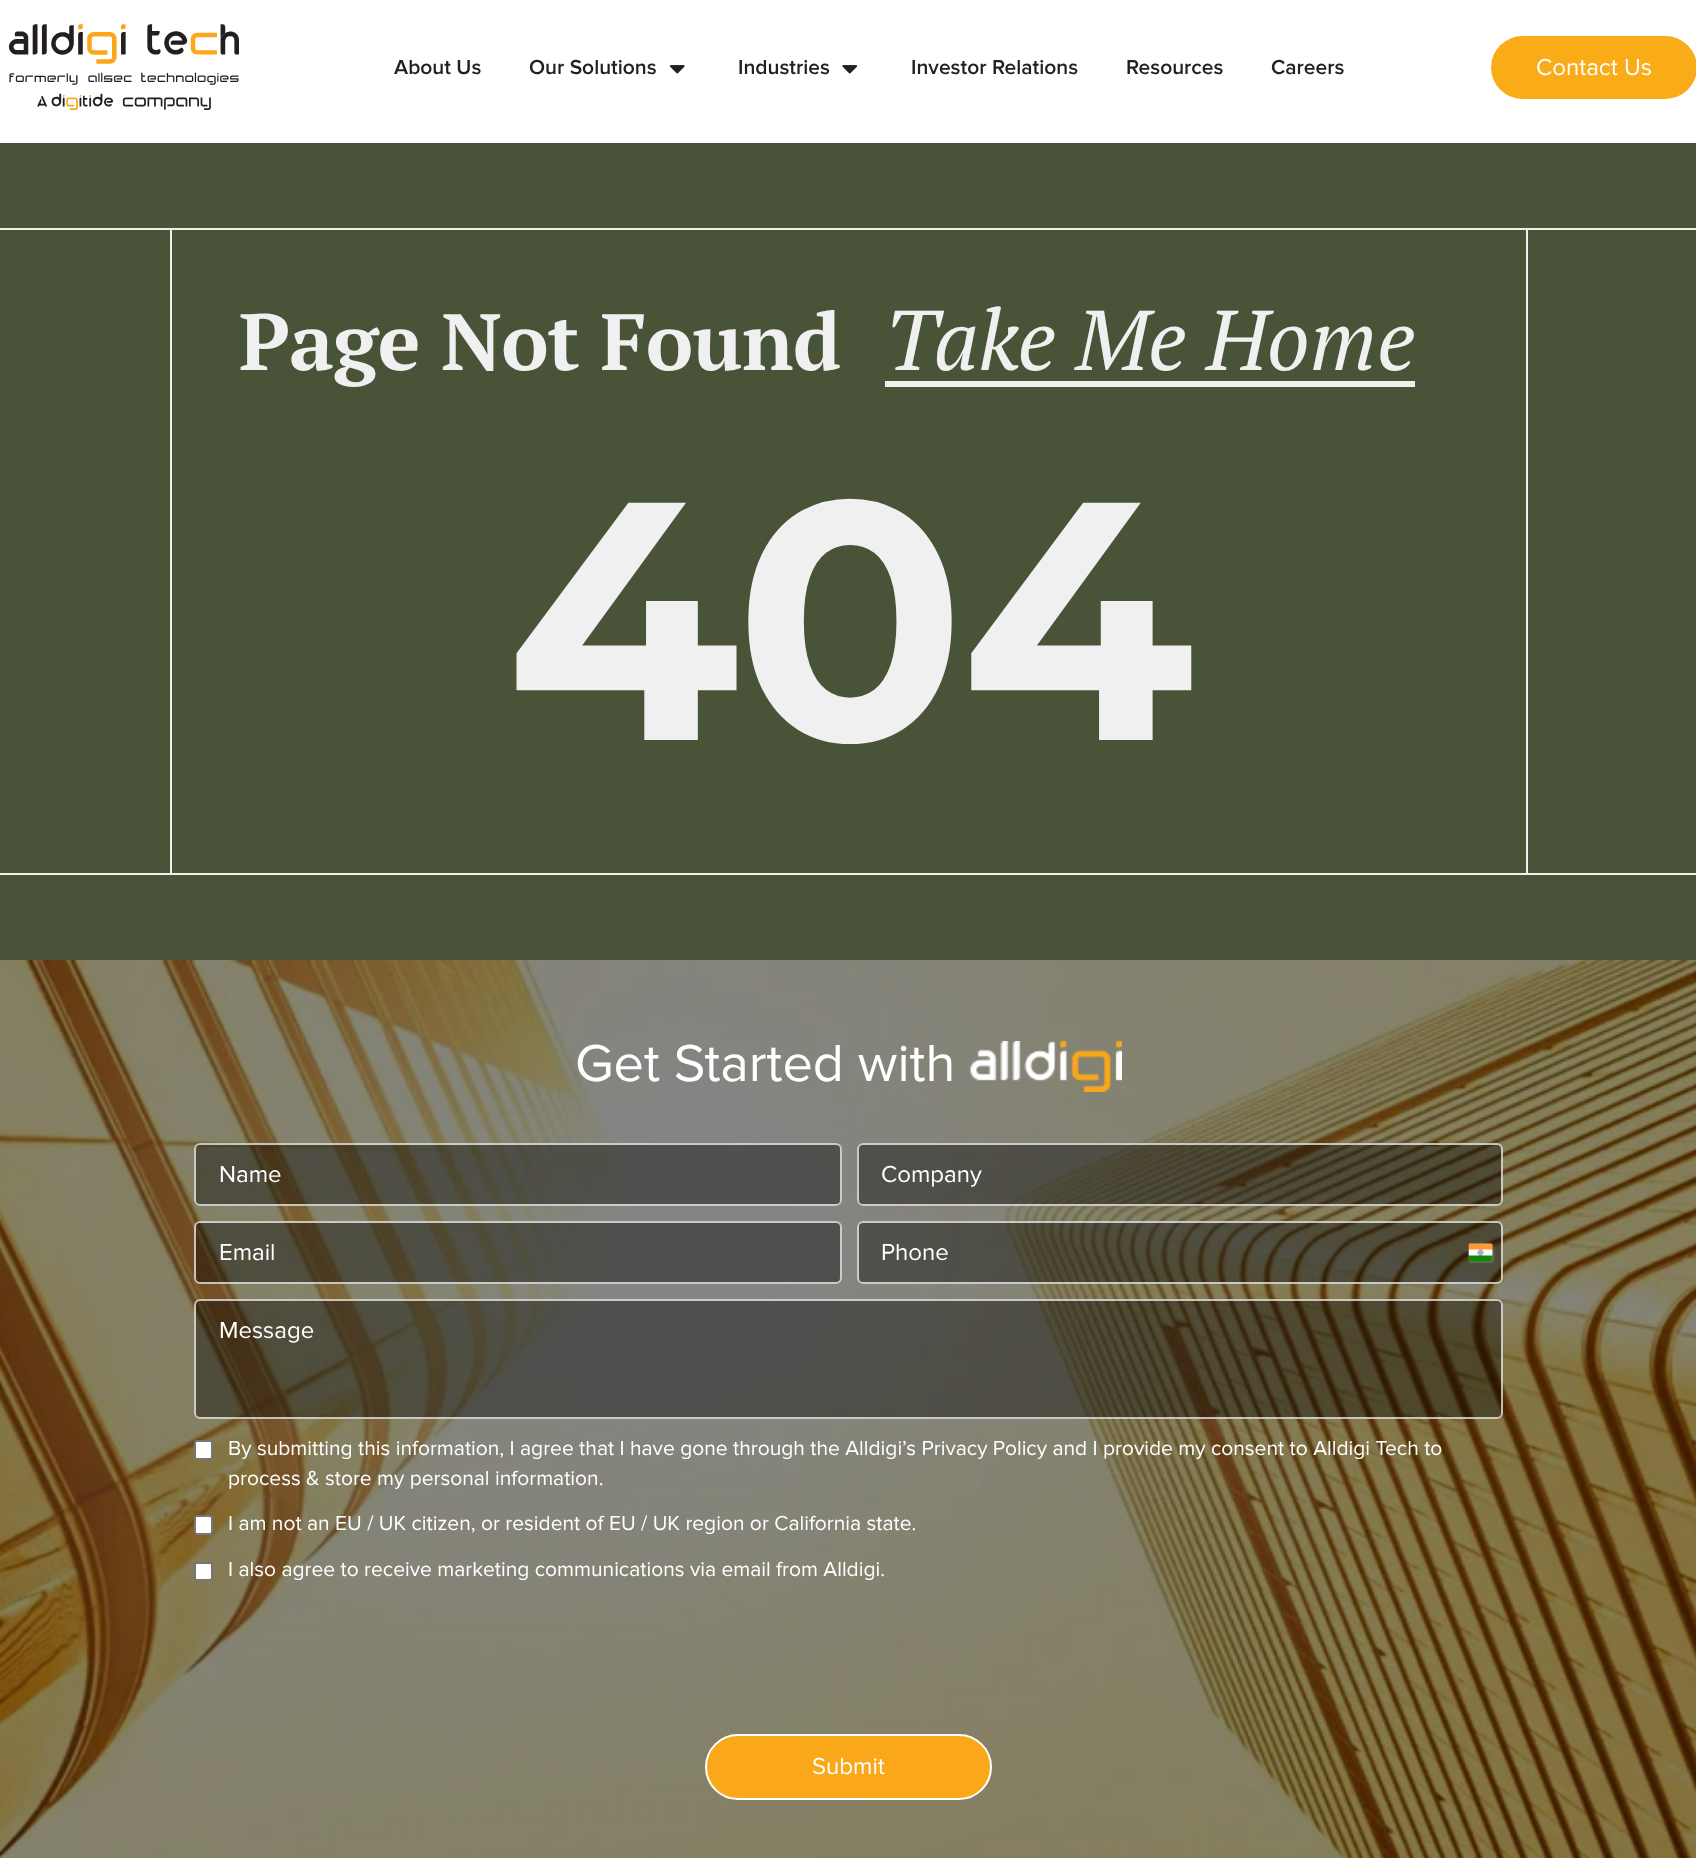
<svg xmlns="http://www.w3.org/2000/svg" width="1696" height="1858">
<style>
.a{font:600 21px Proxima Nova;fill:#1f2124}
.b{font:24px Proxima Nova;fill:#fff}
.c{font:bold 79.75px PT Serif;letter-spacing:-0.4px;fill:#f0f0f0}
.d{font:italic 84.75px PT Serif;letter-spacing:-0.4px;fill:#f0f0f0}
.e{font:bold 339px Montserrat;letter-spacing:-4.5px;fill:#f0f0f0}
.f{font:54px Proxima Nova;fill:#fff}
.g{font:21px Proxima Nova;fill:#fff}
</style>
<rect width="100%" height="100%" fill="#fff"/>
<image href="1.png" x="8" y="24" width="231" height="86"/>
<image href="2.png" x="669" y="65" width="16" height="9"/>
<image href="3.png" x="842" y="65" width="16" height="9"/>
<rect fill="#faac18" x="1491" y="36" width="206" height="63" rx="31.5"/>
<path fill="#495338" d="M0 143h1696v817H0z"/>
<path fill="#f0f0f0" d="M0 228h1696v2H0z"/>
<path fill="#f0f0f0" d="M0 873h1696v2H0z"/>
<path fill="#f0f0f0" d="M1526 230h2v643H1526z"/>
<path fill="#f0f0f0" d="M170 230h2v643H170z"/>
<path fill="#f0f0f0" d="M885 381h530v6H885z"/>
<image href="4.png" x="0" y="960" width="1696" height="898"/>
<image href="5.png" x="970" y="1041" width="152" height="51"/>
<rect fill="#00000066" x="194" y="1143" width="648" height="63" rx="6"/>
<rect fill="none" stroke="#ffffffb3" stroke-width="2" x="195" y="1144" width="646" height="61" rx="5"/>
<rect fill="#00000066" x="857" y="1143" width="646" height="63" rx="6"/>
<rect fill="none" stroke="#ffffffb3" stroke-width="2" x="858" y="1144" width="644" height="61" rx="5"/>
<rect fill="#00000066" x="194" y="1221" width="648" height="63" rx="6"/>
<rect fill="none" stroke="#ffffffb3" stroke-width="2" x="195" y="1222" width="646" height="61" rx="5"/>
<rect fill="#00000066" x="857" y="1221" width="646" height="63" rx="6"/>
<rect fill="none" stroke="#ffffffb3" stroke-width="2" x="858" y="1222" width="644" height="61" rx="5"/>
<rect fill="#888" filter="blur(1px)" x="1469" y="1244" width="24" height="18" rx="1.5"/>
<image href="6.png" x="1468" y="1243" width="25" height="19"/>
<rect fill="#00000066" x="194" y="1299" width="1309" height="120" rx="6"/>
<rect fill="none" stroke="#ffffffb3" stroke-width="2" x="195" y="1300" width="1307" height="118" rx="5"/>
<rect fill="#fff" stroke="#767676" stroke-width="2" x="195" y="1441" width="17" height="18" rx="2"/>
<rect fill="#fff" stroke="#767676" stroke-width="2" x="195" y="1516" width="17" height="18" rx="2"/>
<rect fill="#fff" stroke="#767676" stroke-width="2" x="195" y="1563" width="17" height="17" rx="2"/>
<rect fill="#faa819" stroke="#fff" stroke-width="2" x="706" y="1735" width="285" height="64" rx="32"/>
<text class="a" x="394" y="74">About Us</text>
<text class="a" x="529" y="74">Our Solutions</text>
<text class="a" x="738" y="74">Industries</text>
<text class="a" x="911" y="74">Investor Relations</text>
<text class="a" x="1126" y="74">Resources</text>
<text class="a" x="1271" y="74">Careers</text>
<text class="b" x="1536" y="75">Contact Us</text>
<text class="c" x="239" y="370">Page Not Found</text>
<text class="d" x="885" y="370">Take Me Home</text>
<text class="e" x="506" y="740">404</text>
<text class="f" x="575" y="1081">Get Started with</text>
<text class="b" x="219" y="1182">Name</text>
<text class="b" x="881" y="1182">Company</text>
<text class="b" x="219" y="1260">Email</text>
<text class="b" x="881" y="1260">Phone</text>
<text class="b" x="219" y="1338">Message</text>
<text class="g" x="228" y="1455">By submitting this information, I agree that I have gone through the Alldigi’s Privacy Policy and I provide my consent to Alldigi Tech to</text>
<text class="g" x="228" y="1485">process &amp; store my personal information.</text>
<text class="g" x="228" y="1530">I am not an EU / UK citizen, or resident of EU / UK region or California state.</text>
<text class="g" x="228" y="1576">I also agree to receive marketing communications via email from Alldigi.</text>
<text class="b" x="812" y="1774">Submit</text>
</svg>
